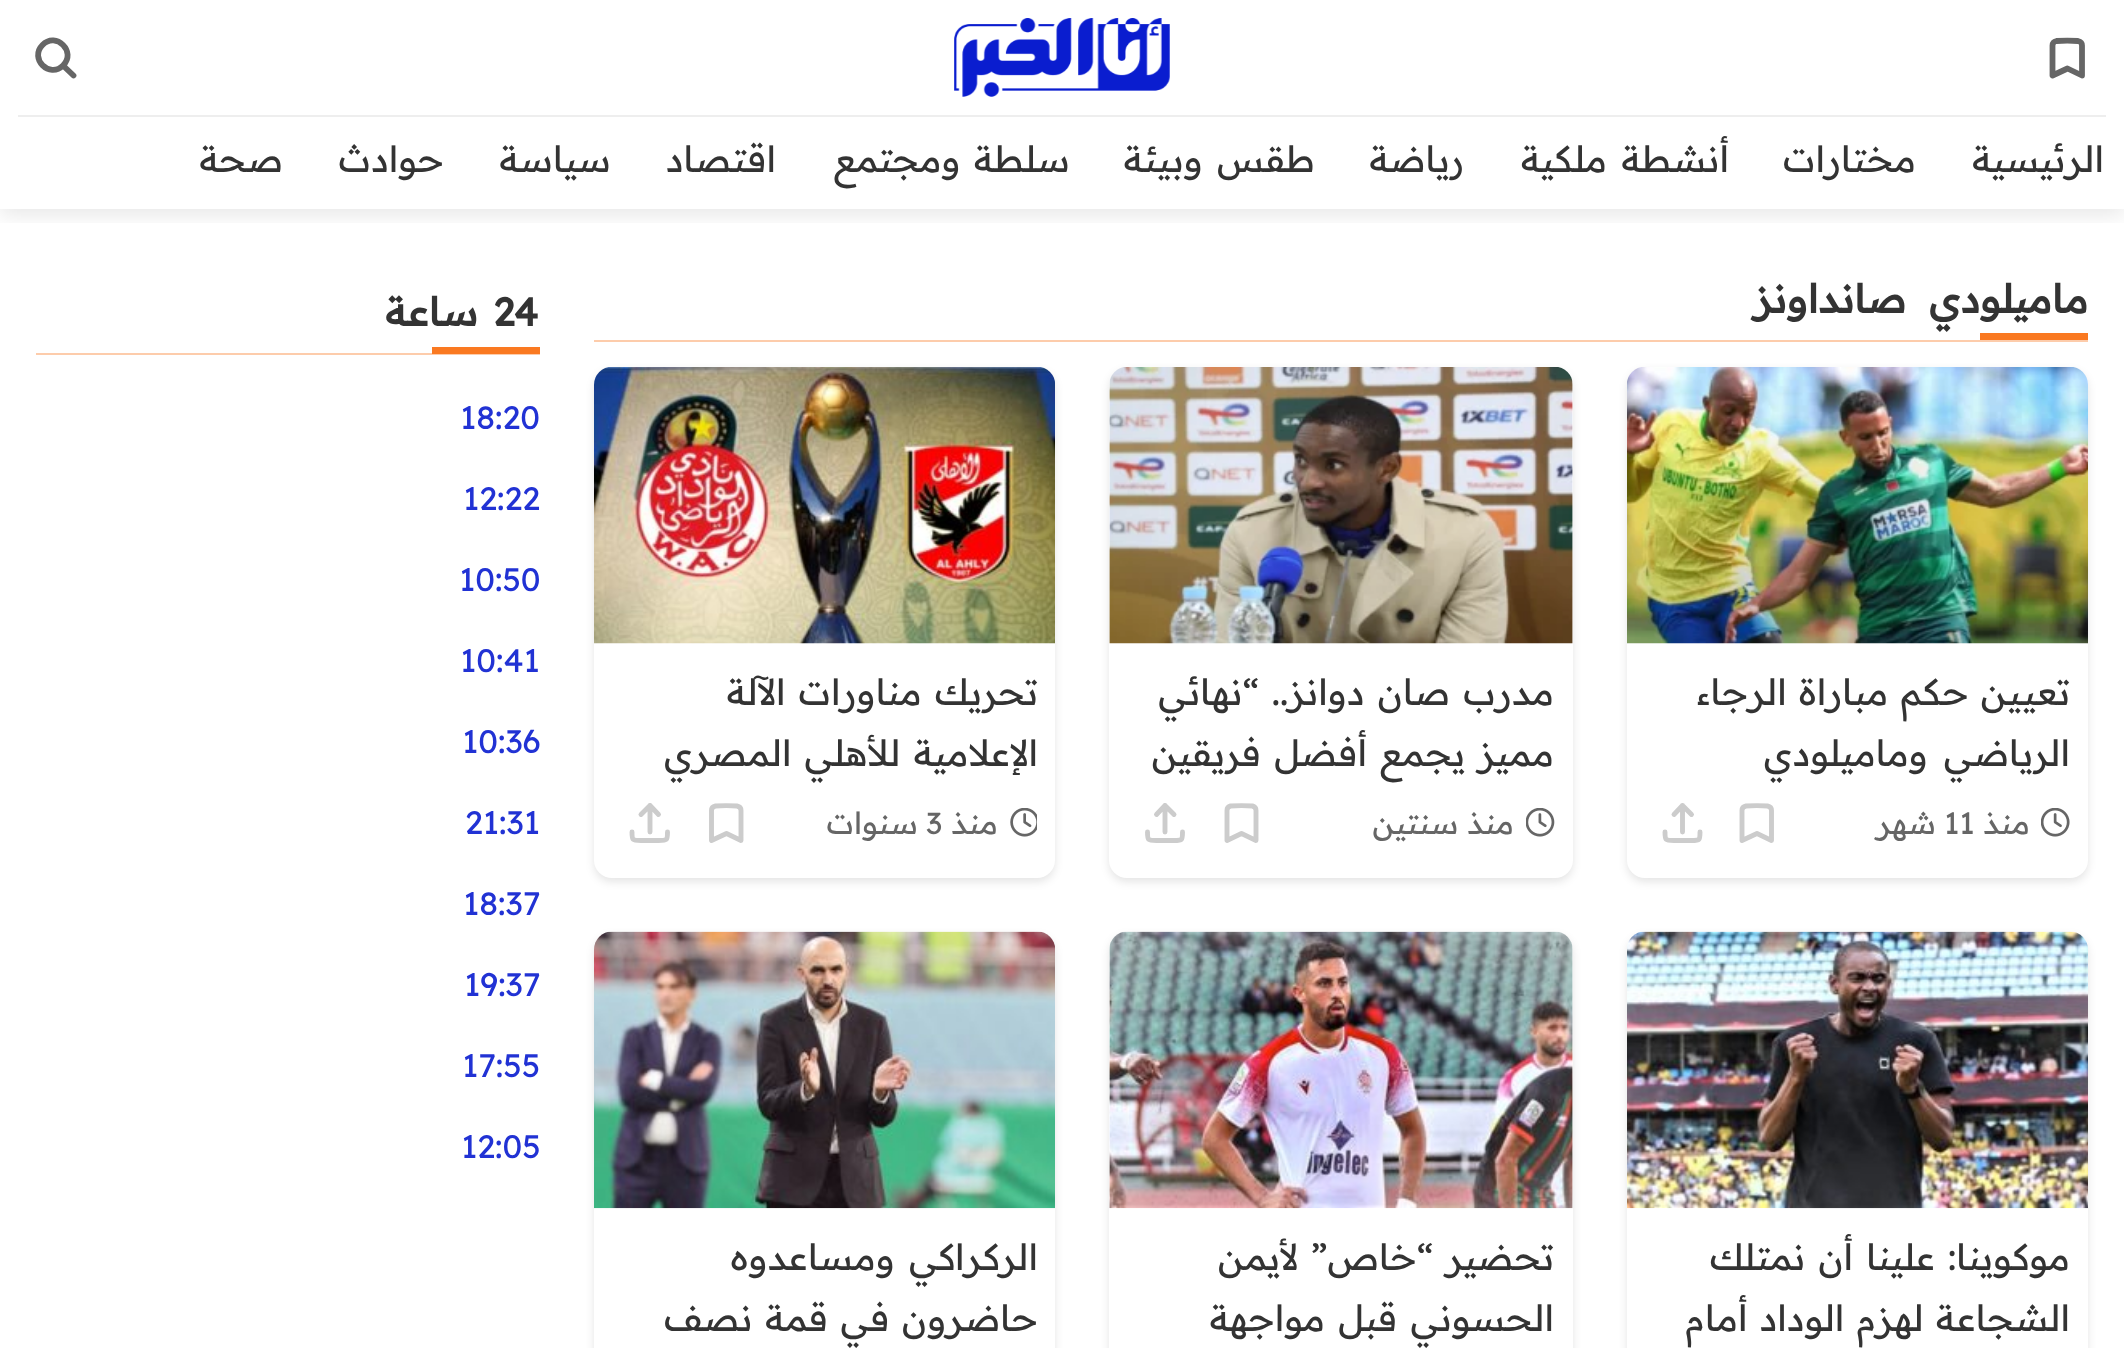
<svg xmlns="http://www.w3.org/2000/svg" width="2124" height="1348">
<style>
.a{font:36px Readex Pro;direction:rtl;fill:#333}
.b{font:bold 39.5px Readex Pro;direction:rtl;fill:#333}
.c{font:30.5px Readex Pro;direction:rtl;fill:#666}
.d{font:30.5px Readex Pro;fill:#666}
.e{font:bold 39.5px Readex Pro;fill:#333}
.f{font:32.5px Readex Pro;fill:#2132d4}
</style>
<defs>
<clipPath id="clip1"><path d="M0 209h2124v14H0z"/></clipPath>
</defs>
<rect width="100%" height="100%" fill="#fff"/>
<g clip-path="url(#clip1)">
<path fill="#0000001a" filter="blur(11px)" d="M0 5h2124v209H0z"/>
</g>
<path fill="none" stroke="#666" stroke-width="5.8" stroke-linecap="round" stroke-linejoin="round" d="M2078 41c2.5 .5 4 2 4 4.5v30l-14.5-7l-15 7v-30c0-2.5 1.5-4 4-4.5c7-.5 14.5-.5 21.5 0z"/>
<image href="1.png" x="954" y="18" width="216" height="79"/>
<path fill="none" stroke="#666" stroke-width="5.8" stroke-linecap="round" stroke-linejoin="round" d="M73.5 75.5l-10.5-10m0 0c14-13.5-7-34.5-20.5-20.5c-13.5 13.5 7 34 20.5 20.5z"/>
<path fill="#eee" d="M18 115h2088v2H18z"/>
<path fill="#fa7921" d="M1980 333h108v7H1980z"/>
<path fill="#fdccab" d="M594 340h1494v2H594z"/>
<rect fill="#0000001a" filter="blur(4.5px)" x="1627" y="371" width="461" height="511" rx="18"/>
<rect fill="#fff" x="1627" y="367" width="461" height="511" rx="18"/>
<image href="2.png" x="1627" y="367" width="461" height="277"/>
<image href="3.png" x="2041" y="808" width="29" height="29"/>
<path fill="none" stroke="#ccc" stroke-width="4.9" stroke-linecap="round" stroke-linejoin="round" d="M1767.5 806c2.5 .5 4 2 4 4.5v30l-14.5-7l-15 7v-30c0-2.5 1.5-4 4-4.5c7-.5 14.5-.5 21.5 0z"/>
<path fill="none" stroke="#ccc" stroke-width="4.9" stroke-linecap="round" stroke-linejoin="round" d="M1665 832c0 8 0 8.5 9 8.5h17.5c8.5 0 8.5-.5 8.5-8.5m-26-17.5l8.5-9m0 0l9 9m-9-9v26.5"/>
<rect fill="#0000001a" filter="blur(4.5px)" x="1109" y="371" width="464" height="511" rx="18"/>
<rect fill="#fff" x="1109" y="367" width="464" height="511" rx="18"/>
<image href="4.png" x="1109" y="367" width="464" height="277"/>
<image href="5.png" x="1526" y="808" width="29" height="29"/>
<path fill="none" stroke="#ccc" stroke-width="4.9" stroke-linecap="round" stroke-linejoin="round" d="M1252.5 806c2 .5 3.5 2 3.5 4.5v30l-14.5-7l-14.5 7v-30c0-2.5 1.5-4 3.5-4.5c7.5-.5 14.5-.5 22 0z"/>
<path fill="none" stroke="#ccc" stroke-width="4.9" stroke-linecap="round" stroke-linejoin="round" d="M1147.5 832c0 8 0 8.5 9 8.5h17.5c8.5 0 8.5-.5 8.5-8.5m-26-17.5l8.5-9m0 0l9 9m-9-9v26.5"/>
<rect fill="#0000001a" filter="blur(4.5px)" x="594" y="371" width="461" height="511" rx="18"/>
<rect fill="#fff" x="594" y="367" width="461" height="511" rx="18"/>
<image href="6.png" x="594" y="367" width="461" height="277"/>
<image href="7.png" x="1010" y="808" width="27" height="29"/>
<path fill="none" stroke="#ccc" stroke-width="4.9" stroke-linecap="round" stroke-linejoin="round" d="M737 806c2.5 .5 4 2 4 4.5v30l-14.5-7l-15 7v-30c0-2.5 1.5-4 4-4.5c7-.5 14.5-.5 21.5 0z"/>
<path fill="none" stroke="#ccc" stroke-width="4.9" stroke-linecap="round" stroke-linejoin="round" d="M632 832c0 8 0 8.5 9 8.5h17.5c9 0 9-.5 9-8.5m-26.5-17.5l9-9m0 0l8.5 9m-8.5-9v26.5"/>
<rect fill="#0000001a" filter="blur(4.5px)" x="1627" y="936" width="461" height="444" rx="18"/>
<rect fill="#fff" x="1627" y="932" width="461" height="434" rx="18"/>
<image href="8.png" x="1627" y="931" width="461" height="278"/>
<rect fill="#0000001a" filter="blur(4.5px)" x="1109" y="936" width="464" height="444" rx="18"/>
<rect fill="#fff" x="1109" y="932" width="464" height="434" rx="18"/>
<image href="9.png" x="1109" y="931" width="464" height="278"/>
<rect fill="#0000001a" filter="blur(4.5px)" x="594" y="936" width="461" height="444" rx="18"/>
<rect fill="#fff" x="594" y="932" width="461" height="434" rx="18"/>
<image href="10.png" x="594" y="931" width="461" height="278"/>
<path fill="#fdccab" d="M36 353h504v2H36z"/>
<path fill="#fa7921" d="M432 347h108v7H432z"/>
<text class="a" x="2104" y="172">الرئيسية</text>
<text class="a" x="1916" y="172">مختارات</text>
<text class="a" x="1729" y="172" word-spacing="4">أنشطة ملكية</text>
<text class="a" x="1464" y="172">رياضة</text>
<text class="a" x="1315" y="172" word-spacing="4">طقس وبيئة</text>
<text class="a" x="1070" y="172" word-spacing="3">سلطة ومجتمع</text>
<text class="a" x="776" y="172">اقتصاد</text>
<text class="a" x="611" y="172">سياسة</text>
<text class="a" x="444" y="172">حوادث</text>
<text class="a" x="283" y="172">صحة</text>
<text class="b" x="2088" y="313" word-spacing="12">ماميلودي صانداونز</text>
<text class="a" x="2070" y="705" word-spacing="2">تعيين حكم مباراة الرجاء</text>
<text class="a" x="2070" y="766" word-spacing="6">الرياضي وماميلودي</text>
<text class="c" x="2030" y="834">منذ</text>
<text class="d" x="1944" y="834">11</text>
<text class="c" x="1936" y="834">شهر</text>
<text class="a" x="1554" y="705" word-spacing="3">مدرب صان دوانز.. “نهائي</text>
<text class="a" x="1554" y="766" word-spacing="3">مميز يجمع أفضل فريقين</text>
<text class="c" x="1514" y="834">منذ سنتين</text>
<text class="a" x="1038" y="705" word-spacing="3">تحريك مناورات الآلة</text>
<text class="a" x="1038" y="766" word-spacing="3">الإعلامية للأهلي المصري</text>
<text class="c" x="998" y="834">منذ</text>
<text class="d" x="926" y="834">3</text>
<text class="c" x="918" y="834">سنوات</text>
<text class="a" x="2070" y="1270" word-spacing="3">موكوينا: علينا أن نمتلك</text>
<text class="a" x="2070" y="1331" word-spacing="2">الشجاعة لهزم الوداد أمام</text>
<text class="a" x="1554" y="1270" word-spacing="3">تحضير “خاص” لأيمن</text>
<text class="a" x="1554" y="1331" word-spacing="3">الحسوني قبل مواجهة</text>
<text class="a" x="1038" y="1270" word-spacing="4">الركراكي ومساعدوه</text>
<text class="a" x="1038" y="1331" word-spacing="2.5">حاضرون في قمة نصف</text>
<text class="e" x="493" y="326">24</text>
<text class="b" x="478" y="326">ساعة</text>
<text class="f" x="460" y="429">18:20</text>
<text class="f" x="463" y="510">12:22</text>
<text class="f" x="459" y="591">10:50</text>
<text class="f" x="460" y="672">10:41</text>
<text class="f" x="462" y="753">10:36</text>
<text class="f" x="465" y="834">21:31</text>
<text class="f" x="463" y="915">18:37</text>
<text class="f" x="464" y="996">19:37</text>
<text class="f" x="462" y="1077">17:55</text>
<text class="f" x="461" y="1158">12:05</text>
</svg>
